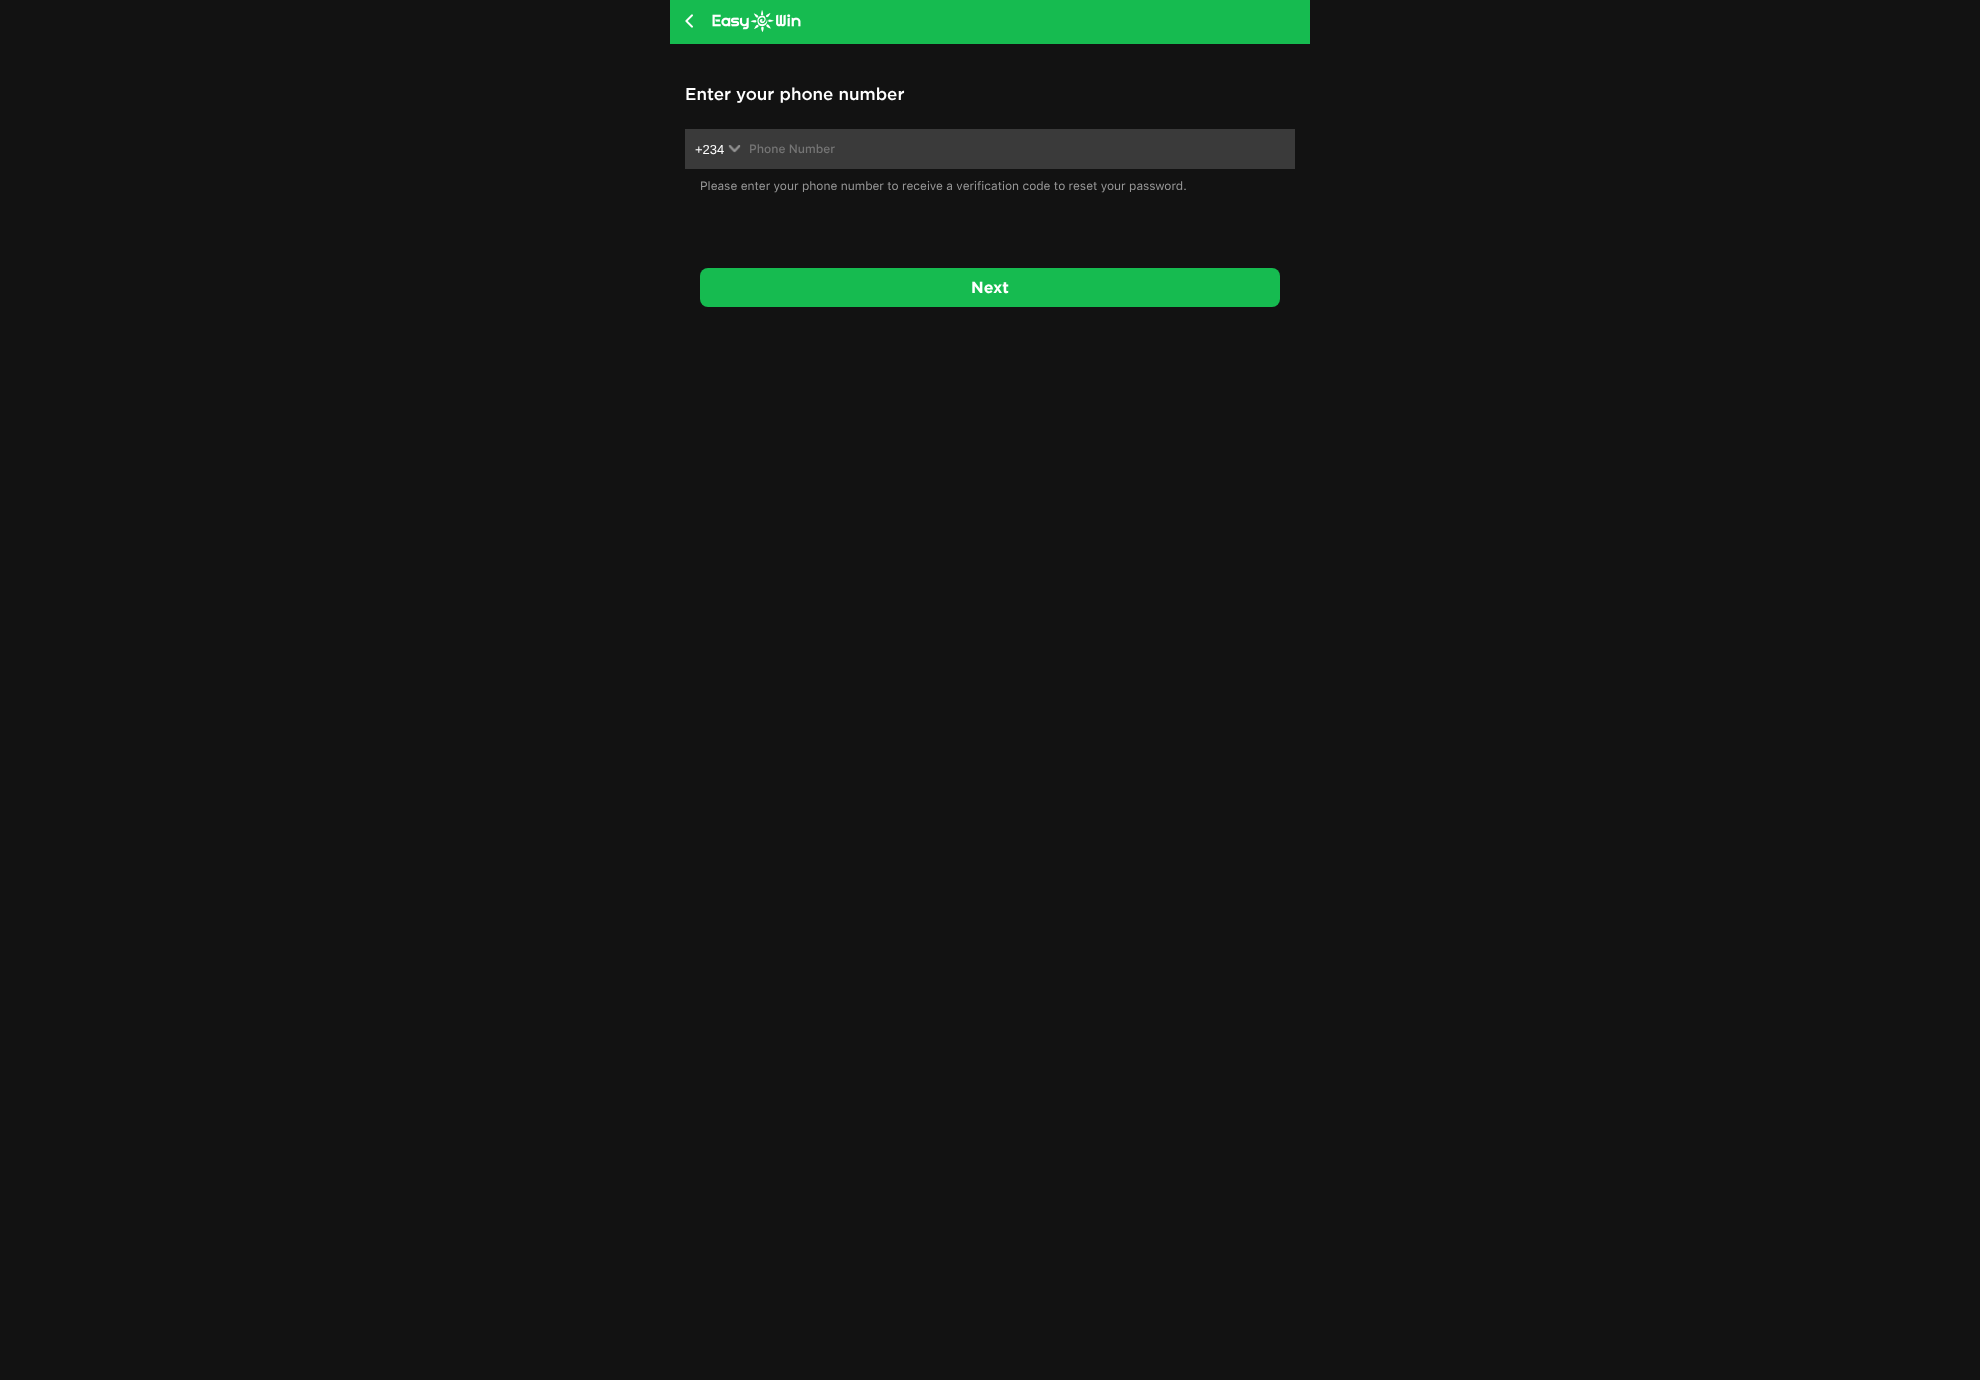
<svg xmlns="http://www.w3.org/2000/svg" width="1980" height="1380">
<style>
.a{font:500 17px Gotham;fill:#fff}
.b{font:13px Liberation Sans;fill:#fff}
.c{font:500 12px SF Pro Text;fill:#757575}
.d{font:12px SF Pro Text;fill:#999}
.e{font:bold 16px Gotham;fill:#fff}
</style>
<rect width="100%" height="100%" fill="#121212"/>
<path fill="#16bb50" d="M670 0h640v44H670z"/>
<image href="1.png" x="685" y="14" width="8" height="14"/>
<image href="2.png" x="712" y="10" width="89" height="22"/>
<path fill="#3a3a3a" d="M685 129h610v40H685z"/>
<image href="3.png" x="728" y="145" width="13" height="8"/>
<rect fill="#16bb50" x="700" y="268" width="580" height="39" rx="8"/>
<text class="a" x="685" y="100">Enter your phone number</text>
<text class="b" x="695" y="154">+234</text>
<text class="c" x="749" y="153">Phone Number</text>
<text class="d" x="700" y="190">Please enter your phone number to receive a verification code to reset your password.</text>
<text class="e" x="971" y="293">Next</text>
</svg>
